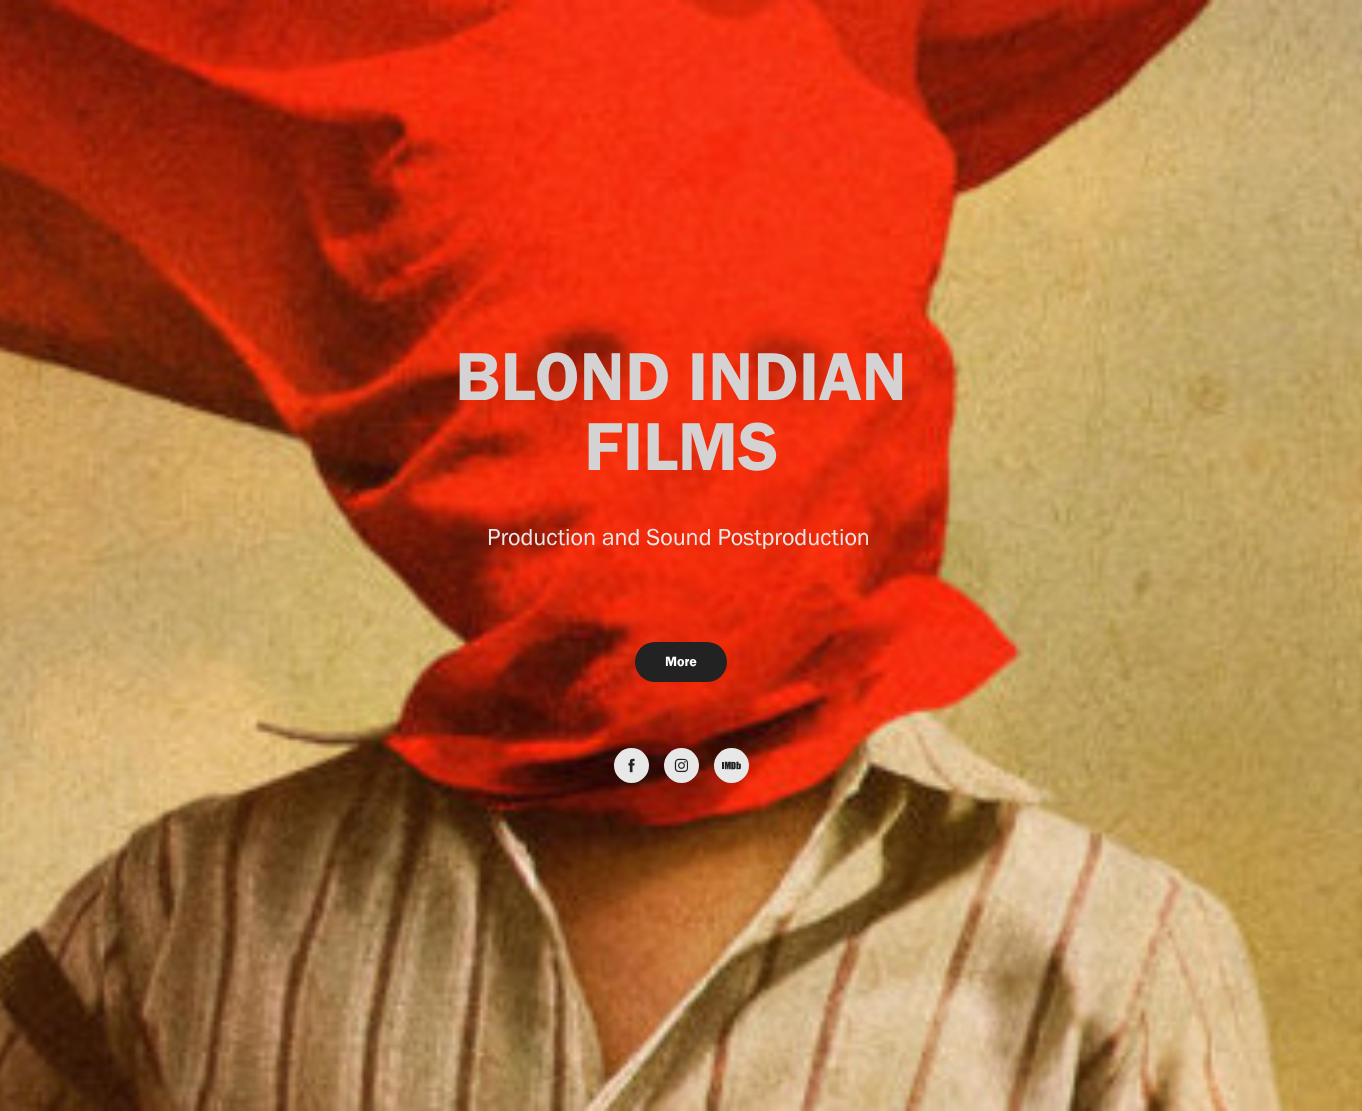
<svg xmlns="http://www.w3.org/2000/svg" width="1362" height="1111">
<style>
.a{font:600 70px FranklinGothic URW;fill:#d4d2d2}
.b{font:24px FranklinGothic URW;fill:#eae8e8}
.c{font:600 14px FranklinGothic URW;fill:#fff}
</style>
<rect width="100%" height="100%" fill="#fff"/>
<image href="1.png" x="0" y="0" width="1362" height="1111"/>
<rect fill="#222" x="635" y="642" width="92" height="40" rx="20"/>
<circle fill="#e8e8e8" cx="631.5" cy="765.5" r="17.5"/>
<image href="2.png" x="628" y="758" width="7" height="15"/>
<circle fill="#e8e8e8" cx="681.5" cy="765.5" r="17.5"/>
<image href="3.png" x="674" y="758" width="14" height="15"/>
<circle fill="#e8e8e8" cx="731.5" cy="765.5" r="17.5"/>
<image href="4.png" x="722" y="761" width="19" height="9"/>
<text class="a" x="455" y="400">BLOND INDIAN</text>
<text class="a" x="584" y="470">FILMS</text>
<text class="b" x="487" y="545">Production and Sound Postproduction</text>
<text class="c" x="665" y="666">More</text>
</svg>
